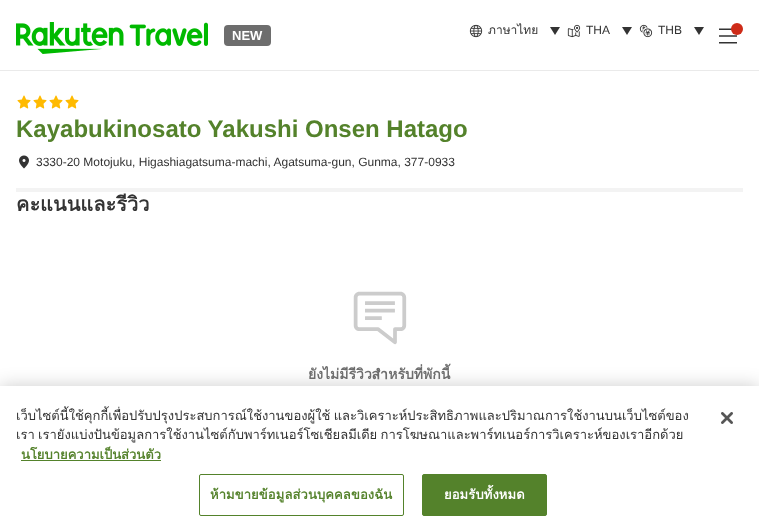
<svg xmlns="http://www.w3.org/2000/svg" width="759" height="532">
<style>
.a{font:bold 13px Liberation Sans;fill:#fff}
.b{font:12px Loma;fill:#333}
.c{font:12px Liberation Sans;fill:#333}
.d{font:bold 24px Liberation Sans;fill:#54822b}
.e{font:bold 20px Loma;fill:#333}
.f{font:bold 14px Loma;fill:#6d6d6d}
.g{font:13px Loma;fill:#333}
.h{font:bold 13px Loma;fill:#54822b}
.i{font:bold 13px Loma;letter-spacing:0.1px;fill:#54822b}
.j{font:bold 13px Loma;letter-spacing:0.1px;fill:#fff}
</style>
<defs>
<clipPath id="clip1"><path d="M16 406h689v58H16z"/></clipPath>
</defs>
<rect width="100%" height="100%" fill="#fff"/>
<path fill="#eaeaea" d="M0 70h759v1H0z"/>
<image href="1.png" x="16" y="22" width="192" height="32"/>
<rect fill="#6d6d6d" x="224" y="25" width="47" height="21" rx="4"/>
<image href="2.png" x="469" y="24" width="14" height="14"/>
<path fill="#333" fill-rule="evenodd" d="M555 35l-5-8h10z"/>
<image href="3.png" x="567" y="24" width="14" height="14"/>
<path fill="#333" fill-rule="evenodd" d="M627 35l-5-8h10z"/>
<image href="4.png" x="639" y="24" width="14" height="14"/>
<path fill="#333" fill-rule="evenodd" d="M699 35l-5-8h10z"/>
<image href="5.png" x="719" y="28" width="18" height="16"/>
<circle fill="#ce2b18" cx="737" cy="29" r="6"/>
<path fill="#f3f3f3" d="M16 188h727v4H16z"/>
<image href="6.png" x="17" y="95" width="14" height="14"/>
<image href="6.png" x="33" y="95" width="14" height="14"/>
<image href="6.png" x="49" y="95" width="14" height="14"/>
<image href="6.png" x="65" y="95" width="14" height="14"/>
<image href="7.png" x="19" y="155" width="10" height="14"/>
<image href="8.png" x="353" y="291" width="54" height="54"/>
<path fill="#00000033" filter="blur(9px)" d="M0 386h759v146H0z"/>
<path fill="#fff" d="M0 386h759v146H0z"/>
<path fill="#54822b" d="M21 460h140v1H21z"/>
<rect fill="none" stroke="#54822b" x="199.5" y="474.5" width="204" height="41" rx="1.5"/>
<rect fill="#54822b" stroke="#54822b" x="422.5" y="474.5" width="124" height="41" rx="1.5"/>
<image href="9.png" x="721" y="412" width="12" height="12"/>
<text class="a" x="232" y="40">NEW</text>
<text class="b" x="488" y="34">ภาษาไทย</text>
<text class="c" x="586" y="34">THA</text>
<text class="c" x="658" y="34">THB</text>
<text class="d" x="16" y="137">Kayabukinosato Yakushi Onsen Hatago</text>
<text class="c" x="36" y="166">3330-20 Motojuku, Higashiagatsuma-machi, Agatsuma-gun, Gunma, 377-0933</text>
<text class="e" x="16" y="211">คะแนนและรีวิว</text>
<text class="f" x="308" y="379">ยังไม่มีรีวิวสำหรับที่พักนี้</text>
<g clip-path="url(#clip1)">
<text class="g" x="16" y="420" word-spacing="-1">เว็บไซต์นี้ใช้คุกกี้เพื่อปรับปรุงประสบการณ์ใช้งานของผู้ใช้ และวิเคราะห์ประสิทธิภาพและปริมาณการใช้งานบนเว็บไซต์ของ</text>
</g>
<text class="g" x="16" y="439" word-spacing="-1">เรา เรายังแบ่งปันข้อมูลการใช้งานไซต์กับพาร์ทเนอร์โซเชียลมีเดีย การโฆษณาและพาร์ทเนอร์การวิเคราะห์ของเราอีกด้วย</text>
<text class="h" x="21" y="459">นโยบายความเป็นส่วนตัว</text>
<text class="i" x="210" y="499">ห้ามขายข้อมูลส่วนบุคคลของฉัน</text>
<text class="j" x="444" y="499">ยอมรับทั้งหมด</text>
</svg>
